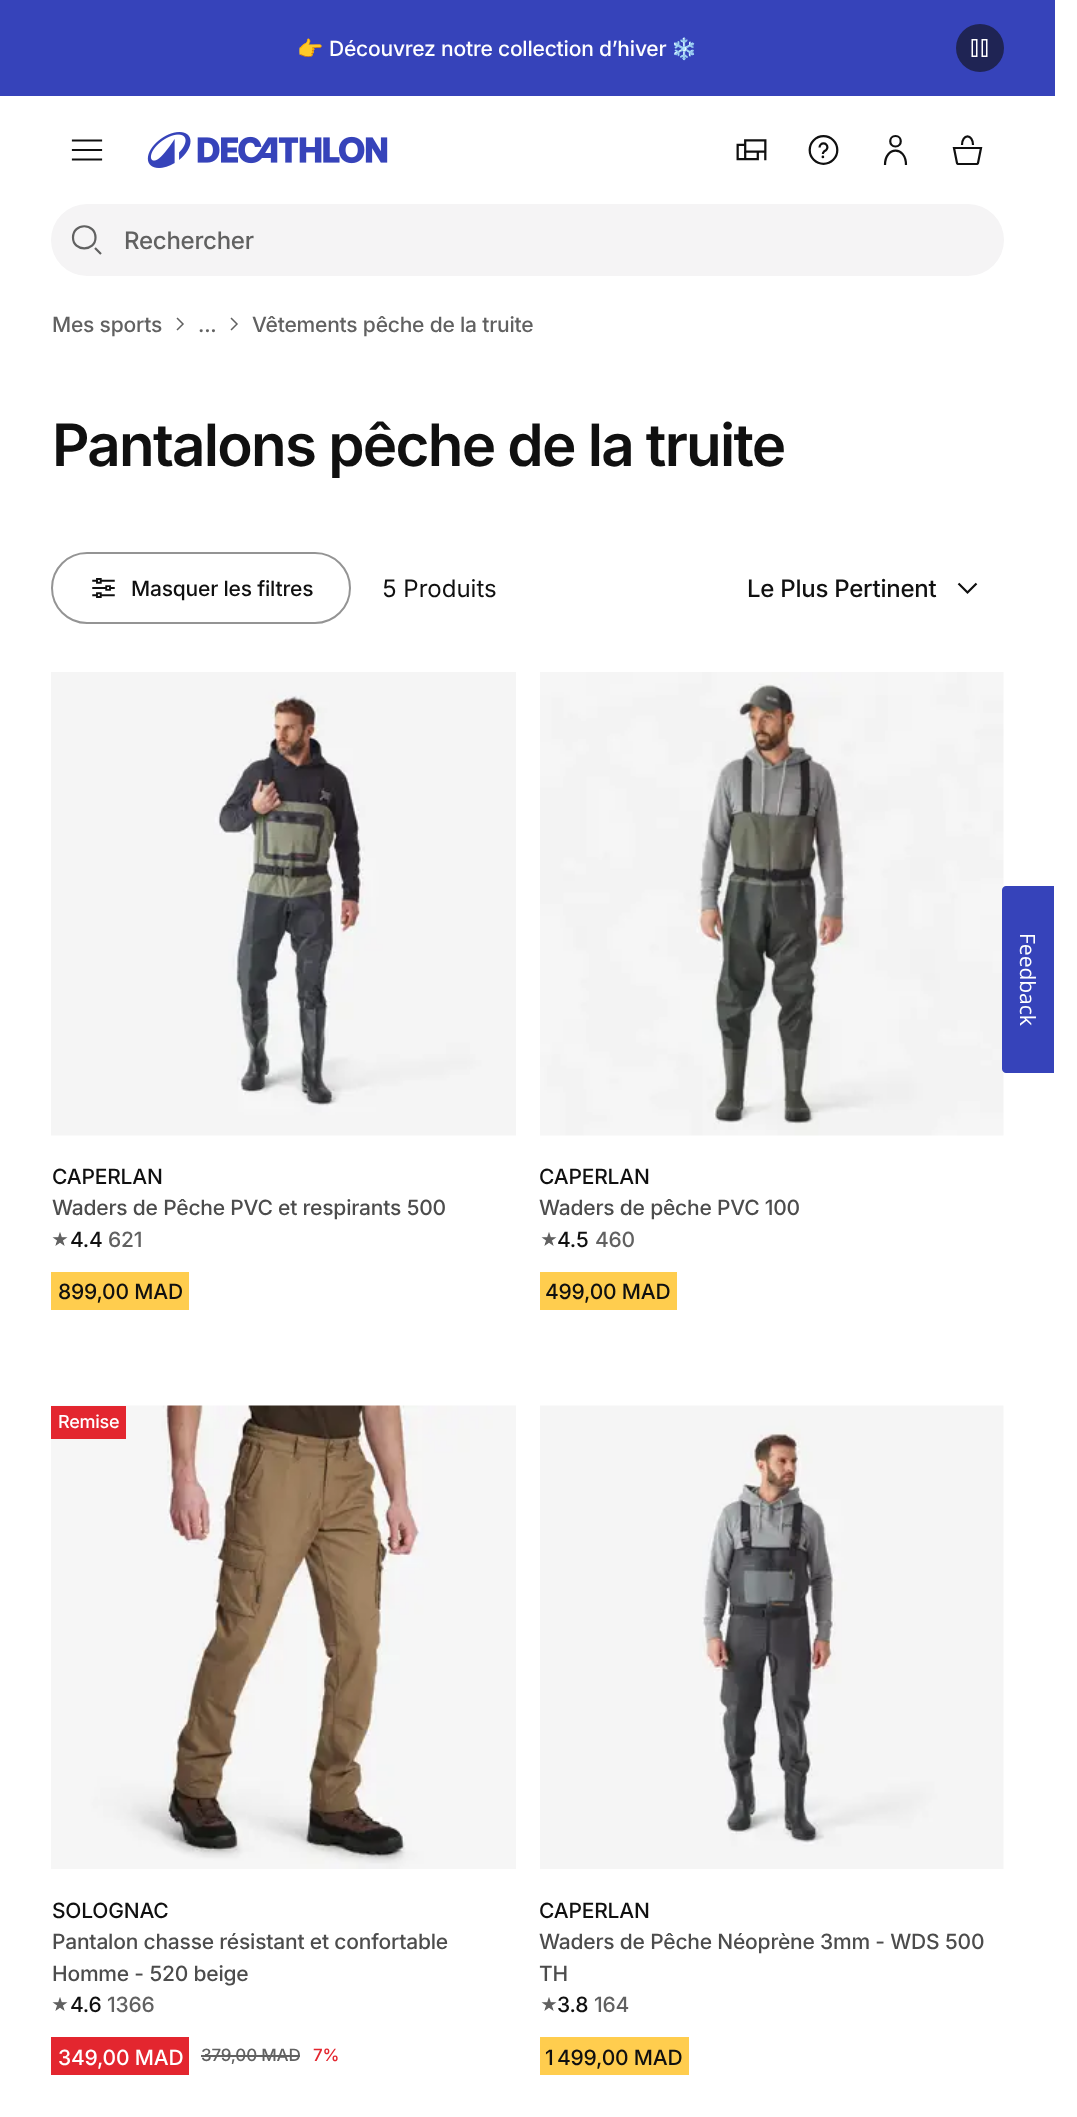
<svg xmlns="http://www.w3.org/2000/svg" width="1077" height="2117">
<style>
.a{font:21px Noto Color Emoji;letter-spacing:-0.2px;fill:#fff}
.b{font:500 21px Inter;letter-spacing:-0.2px;fill:#fff}
.c{font:500 24px Inter;letter-spacing:-0.25px;fill:#616161}
.d{font:500 21px Inter;letter-spacing:-0.2px;fill:#616161}
.e{font:600 58.3px Inter;letter-spacing:-1.75px;fill:#101010}
.f{font:500 21px Inter;letter-spacing:-0.2px;fill:#101010}
.g{font:24px Inter;fill:#101010}
.h{font:500 24px Inter;letter-spacing:-0.25px;fill:#101010}
.i{font:500 21px Inter;letter-spacing:-0.2px;fill:#4c4c4c}
.j{font:500 18px Inter;letter-spacing:-0.25px;fill:#fff}
.k{font:500 17px Inter;letter-spacing:-0.2px;fill:#616161}
.l{font:500 17px Inter;letter-spacing:-0.2px;fill:#e3262f}
.m{font:21px Open Sans;fill:#fff}
</style>
<rect width="100%" height="100%" fill="#fff"/>
<path fill="#3643ba" d="M0 0h1055v96H0z"/>
<circle fill="#1f2454" cx="980" cy="48" r="24"/>
<image href="1.png" x="971" y="39" width="17" height="18"/>
<path fill="none" stroke="#101010" stroke-width="2.2" stroke-linecap="square" d="M73 150h28m-28-9.5h28m-28 19h28"/>
<image href="2.png" x="147" y="132" width="241" height="36"/>
<image href="3.png" x="736" y="139" width="31" height="22"/>
<image href="4.png" x="808" y="135" width="31" height="30"/>
<path fill="none" stroke="#101010" stroke-width="2.2" d="M885 165c0-19 21-19.5 21 0m-10.5-29c-7 0-7 10.5 0 10.5c7 0 7-10.5 0-10.5z"/>
<path fill="none" stroke="#101010" stroke-width="2.2" d="M962 145c0-11.5 11-11.5 11 0m-16 18c0 .5 1 1 1.5 1h18c.5 0 1.5-.5 1.5-1l3-15h-27z"/>
<rect fill="#f5f4f5" x="51" y="204" width="953" height="72" rx="36"/>
<path fill="none" stroke="#616161" stroke-width="2.2" d="M101 254l-6-6m.5-10.5c0 14.5-22.5 14.5-22.5 0c0-15 22.5-15 22.5 0z"/>
<image href="5.png" x="176" y="317" width="8" height="14"/>
<image href="5.png" x="230" y="317" width="8" height="14"/>
<rect fill="none" stroke="#949494" stroke-width="2" x="52" y="553" width="298" height="70" rx="35"/>
<image href="6.png" x="92" y="578" width="23" height="20"/>
<image href="7.png" x="957" y="582" width="21" height="12"/>
<image href="8.png" x="51" y="672" width="465" height="464"/>
<image href="9.png" x="52" y="1232" width="16" height="14"/>
<path fill="#ffcd4e" d="M51 1272h138v38H51z"/>
<image href="10.png" x="540" y="672" width="464" height="464"/>
<image href="11.png" x="541" y="1232" width="16" height="14"/>
<path fill="#ffcd4e" d="M540 1272h137v38H540z"/>
<image href="12.png" x="51" y="1405" width="465" height="464"/>
<path fill="#e3262f" d="M51 1406h75v33H51z"/>
<image href="9.png" x="52" y="1997" width="16" height="14"/>
<path fill="#e3262f" d="M51 2037h138v38H51z"/>
<path fill="#616161" d="M201 2055h99v2H201z"/>
<image href="13.png" x="540" y="1405" width="464" height="464"/>
<image href="11.png" x="541" y="1997" width="16" height="14"/>
<path fill="#ffcd4e" d="M540 2037h149v38H540z"/>
<path fill="#3643ba" d="M1054 886v187h-48c-2 0-4-2-4-4v-179c0-2 2-4 4-4z"/>
<text class="a" x="297" y="56">👉</text>
<text class="b" x="329" y="56">Découvrez notre collection d’hiver</text>
<text class="a" x="671" y="56">❄️</text>
<text class="c" x="124" y="249">Rechercher</text>
<text class="d" x="52" y="332">Mes sports</text>
<text class="d" x="198" y="332">...</text>
<text class="d" x="252" y="332">Vêtements pêche de la truite</text>
<text class="e" x="52" y="466">Pantalons pêche de la truite</text>
<text class="f" x="131" y="596">Masquer les filtres</text>
<text class="g" x="382" y="597">5 Produits</text>
<text class="h" x="747" y="597">Le Plus Pertinent</text>
<text class="f" x="52" y="1184">CAPERLAN</text>
<text class="i" x="52" y="1215">Waders de Pêche PVC et respirants 500</text>
<text class="f" x="70" y="1247">4.4</text>
<text class="d" x="108" y="1247">621</text>
<text class="f" x="58" y="1299">899,00 MAD</text>
<text class="f" x="539" y="1184">CAPERLAN</text>
<text class="i" x="539" y="1215">Waders de pêche PVC 100</text>
<text class="f" x="557" y="1247">4.5</text>
<text class="d" x="595" y="1247">460</text>
<text class="f" x="545" y="1299">499,00 MAD</text>
<text class="j" x="58" y="1428">Remise</text>
<text class="f" x="52" y="1918">SOLOGNAC</text>
<text class="i" x="52" y="1949">Pantalon chasse résistant et confortable</text>
<text class="i" x="52" y="1981">Homme - 520 beige</text>
<text class="f" x="70" y="2012">4.6</text>
<text class="d" x="107" y="2012">1366</text>
<text class="b" x="58" y="2065">349,00 MAD</text>
<text class="k" x="201" y="2061">379,00 MAD</text>
<text class="l" x="313" y="2061">7%</text>
<text class="f" x="539" y="1918">CAPERLAN</text>
<text class="i" x="539" y="1949">Waders de Pêche Néoprène 3mm - WDS 500</text>
<text class="i" x="539" y="1981">TH</text>
<text class="f" x="557" y="2012">3.8</text>
<text class="d" x="594" y="2012">164</text>
<text class="f" x="545" y="2065">1 499,00 MAD</text>
<text class="m" x="1020" y="933" transform="rotate(90 1020 933)">Feedback</text>
</svg>
